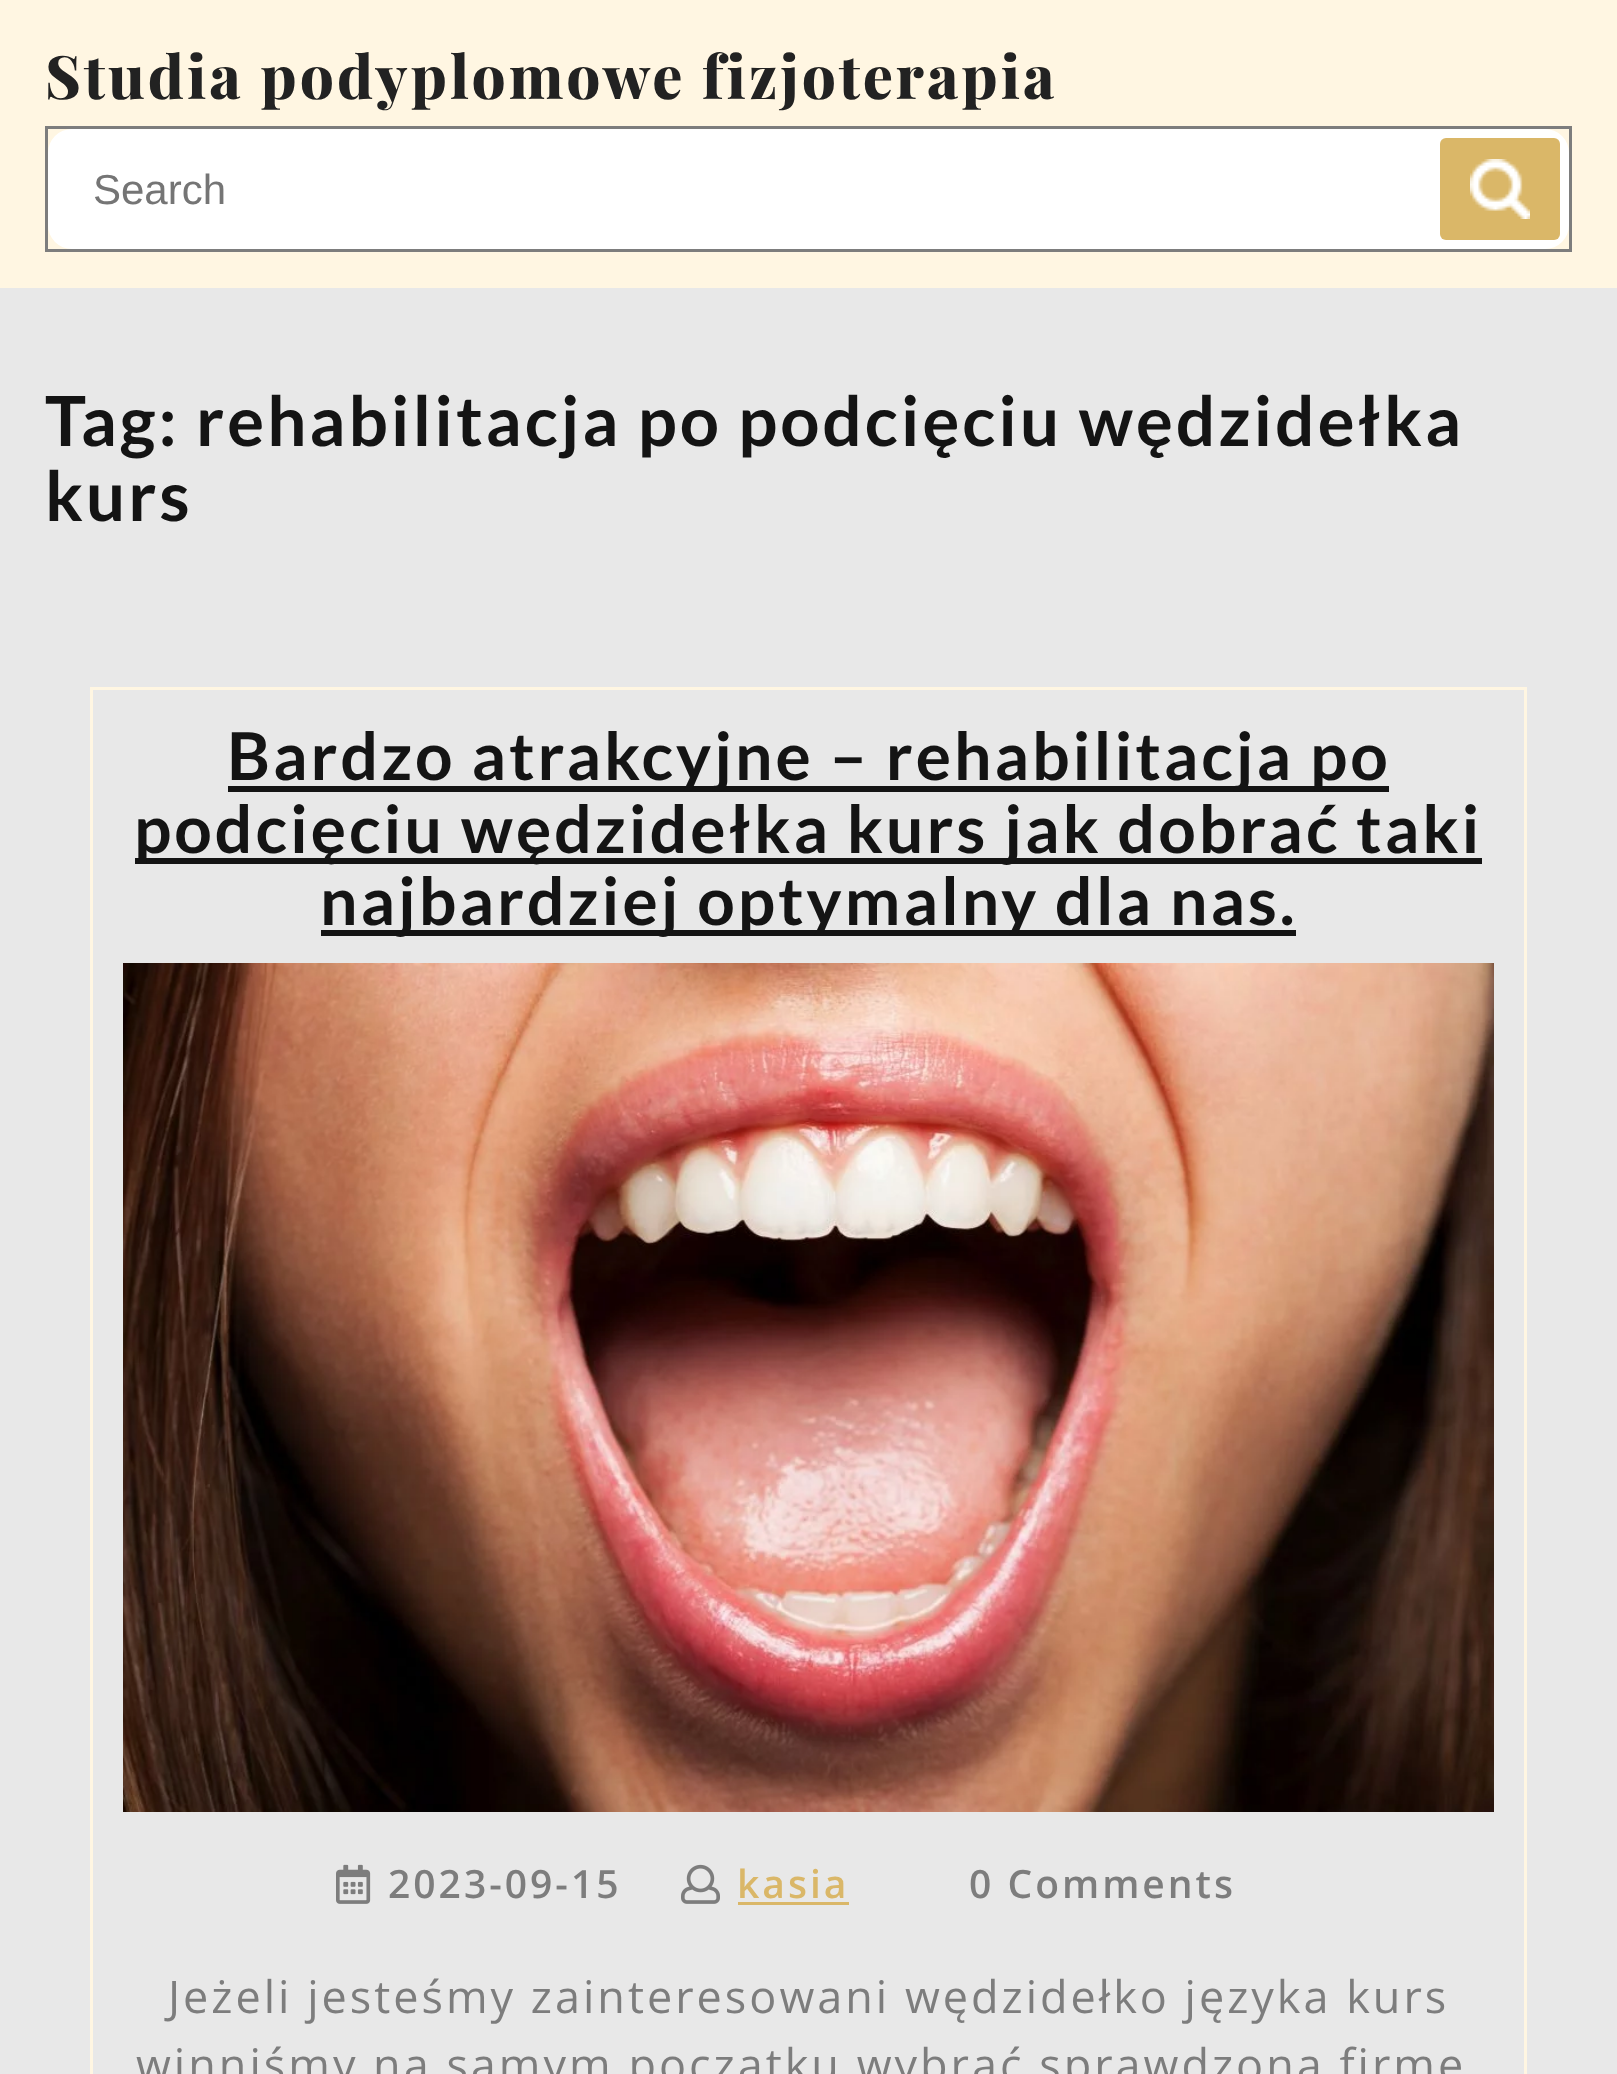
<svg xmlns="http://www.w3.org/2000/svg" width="1617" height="2074">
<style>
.a{font:800 60px Playfair Display;letter-spacing:3px;fill:#222}
.b{font:42px Liberation Sans;fill:#757575}
.c{font:bold 69px Lato;letter-spacing:3px;fill:#141414}
.d{font:bold 66px Lato;letter-spacing:3px;fill:#141414}
.e{font:600 39px Open Sans;letter-spacing:3px;fill:#7d7d7d}
.f{font:600 39px Open Sans;letter-spacing:3px;fill:#dab768}
.g{font:45px Open Sans;letter-spacing:3px;fill:#7d7d7d}
</style>
<rect width="100%" height="100%" fill="#e8e8e8"/>
<path fill="#fff6e2" d="M0 0h1617v288H0z"/>
<path fill="none" stroke="#7d7d7d" stroke-width="3" d="M46.5 127.5h1524v123H46.5z"/>
<rect fill="#fff" x="48" y="129" width="1521" height="120" rx="24"/>
<rect fill="#dab768" x="1440" y="138" width="120" height="102" rx="6"/>
<image href="1.png" x="1470" y="159" width="60" height="60"/>
<path fill="none" stroke="#fff6e2" stroke-width="3" d="M91.5 688.5h1434v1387H91.5z"/>
<path fill="#141414" d="M228 786h1161v6H228z"/>
<path fill="#141414" d="M135 858h1347v6H135z"/>
<path fill="#141414" d="M321 930h975v6H321z"/>
<image href="2.png" x="123" y="963" width="1371" height="849"/>
<image href="3.png" x="336" y="1864" width="35" height="40"/>
<image href="4.png" x="681" y="1864" width="39" height="40"/>
<path fill="#dab768" d="M738 1902h111v3H738z"/>
<text class="a" x="45" y="99">Studia podyplomowe fizjoterapia</text>
<text class="b" x="93" y="204">Search</text>
<text class="c" x="45" y="446">Tag: rehabilitacja po podcięciu wędzidełka</text>
<text class="c" x="45" y="521">kurs</text>
<text class="d" x="227" y="780">Bardzo atrakcyjne – rehabilitacja po</text>
<text class="d" x="134" y="853">podcięciu wędzidełka kurs jak dobrać taki</text>
<text class="d" x="320" y="925">najbardziej optymalny dla nas.</text>
<text class="e" x="388" y="1898">2023-09-15</text>
<text class="f" x="737" y="1898">kasia</text>
<text class="e" x="969" y="1898">0 Comments</text>
<text class="g" x="168" y="2013">Jeżeli jesteśmy zainteresowani wędzidełko języka kurs</text>
<text class="g" x="136" y="2081">winniśmy na samym początku wybrać sprawdzoną firmę</text>
</svg>
